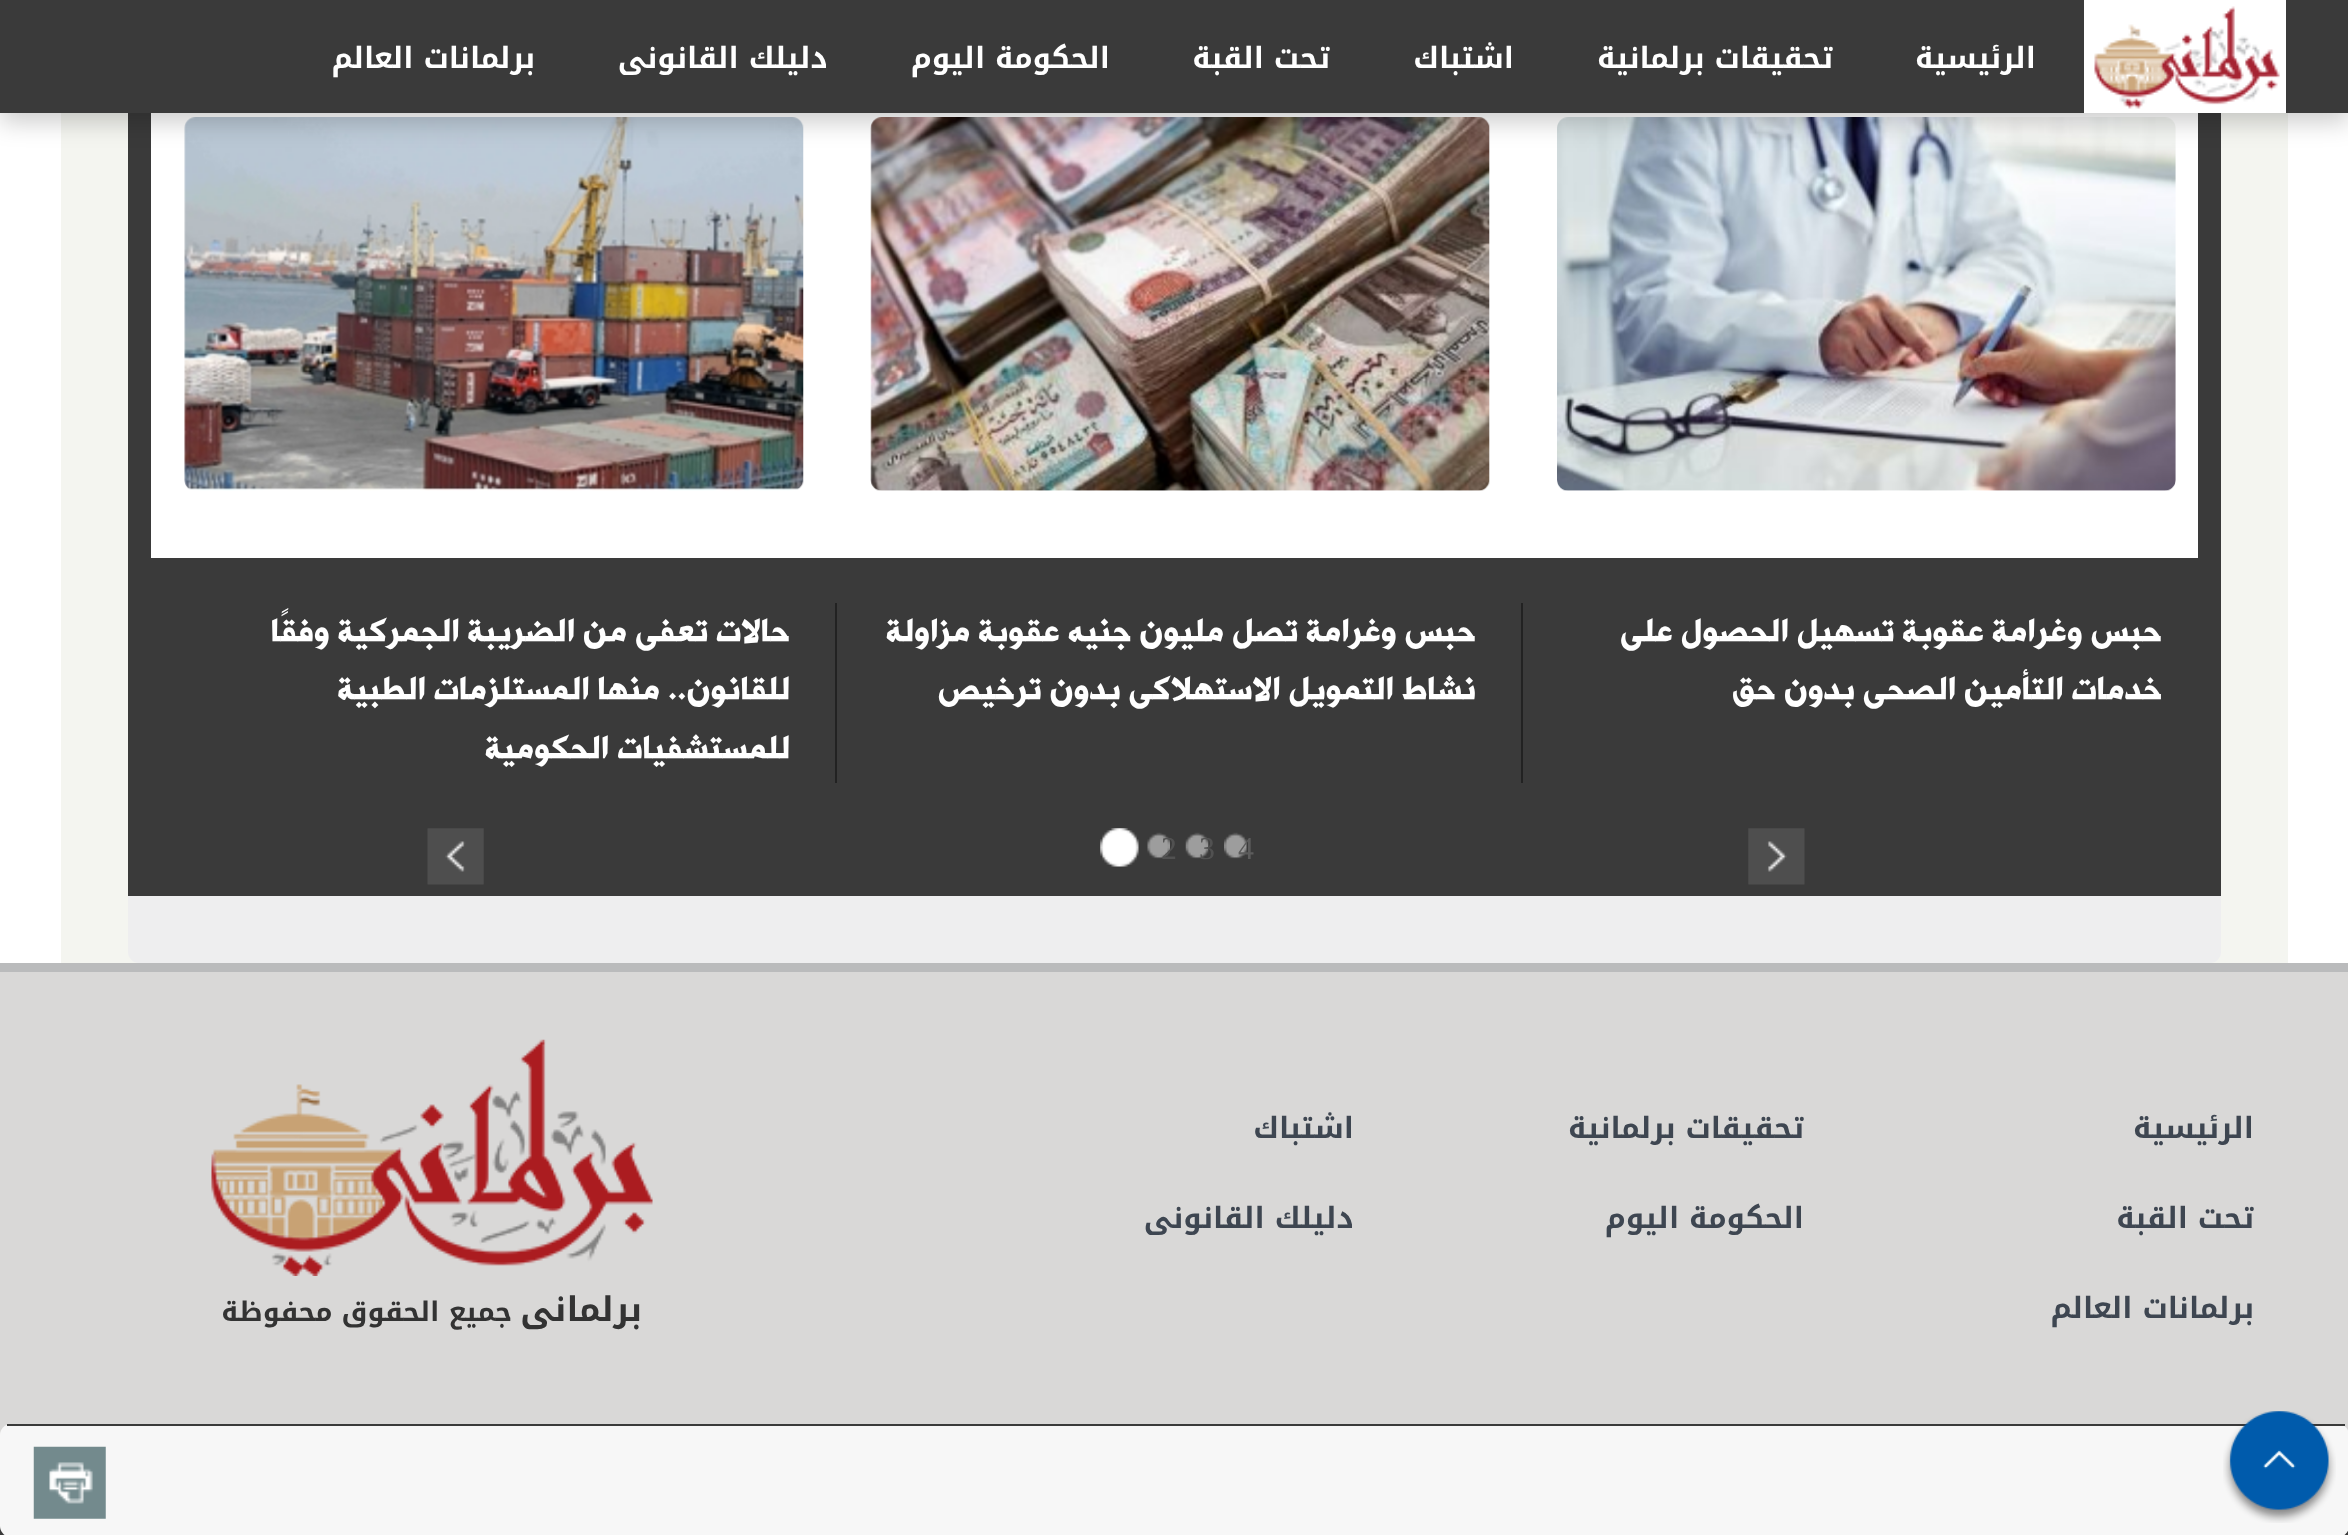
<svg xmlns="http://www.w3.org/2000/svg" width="2348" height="1535">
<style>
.a{font:bold 29.25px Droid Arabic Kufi;direction:rtl;fill:#fff}
.b{font:38.25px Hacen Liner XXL;direction:rtl;fill:#fff}
.c{font:32px Liberation Serif;fill:#5c5c5c}
.d{font:32px Liberation Serif;fill:#515151}
.e{font:bold 29.25px Droid Arabic Kufi;direction:rtl;fill:#3e4651}
.f{font:bold 34px Droid Arabic Kufi;direction:rtl;fill:#333}
.g{font:bold 27px Droid Arabic Kufi;direction:rtl;fill:#333}
</style>
<rect width="100%" height="100%" fill="#fff"/>
<path fill="#f4f5f0" d="M61 113h2227v850H61z"/>
<rect fill="#eeeeef" x="128" y="-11" width="2093" height="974" rx="11"/>
<path fill="#3a3a3a" d="M128 113h2093v783H128z"/>
<path fill="#fff" d="M151 113h2047v445H151z"/>
<image href="2.png" x="1557" y="117" width="619" height="374"/>
<image href="3.png" x="870" y="117" width="620" height="374"/>
<image href="4.png" x="184" y="117" width="620" height="374"/>
<path fill="#00000033" filter="blur(12.5px)" d="M0 9h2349v113H0z"/>
<path fill="#3a3a3a" d="M0 0h2348v113H0z"/>
<path fill="#fff" d="M2084 0h202v113H2084z"/>
<image href="1.png" x="2094" y="6" width="186" height="103"/>
<path fill="#222" d="M1521 603h2v180H1521z"/>
<path fill="#222" d="M835 603h2v180H835z"/>
<image href="5.png" x="1748" y="828" width="57" height="57"/>
<image href="6.png" x="427" y="828" width="57" height="57"/>
<image href="7.png" x="1224" y="832" width="23" height="27"/>
<image href="8.png" x="1185" y="832" width="24" height="27"/>
<image href="9.png" x="1147" y="832" width="23" height="27"/>
<image href="10.png" x="1100" y="828" width="39" height="39"/>
<path fill="#d9d8d7" d="M0 972h2348v463H0z"/>
<path fill="#3a3a3a" d="M0 1526h2348v9H0z"/>
<rect fill="#f7f7f7" y="1424" width="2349" height="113" rx="11"/>
<path fill="#3a3a3a" d="M7 1424h2338v2H7z"/>
<image href="11.png" x="33" y="1446" width="73" height="73"/>
<path fill="#babbbc" d="M0 963h2348v9H0z"/>
<image href="12.png" x="211" y="1039" width="442" height="237"/>
<image href="13.png" x="2223" y="1411" width="113" height="112"/>
<text class="a" x="2036" y="68">الرئيسية</text>
<text class="a" x="1833" y="68">تحقيقات برلمانية</text>
<text class="a" x="1514" y="68">اشتباك</text>
<text class="a" x="1330" y="68">تحت القبة</text>
<text class="a" x="1110" y="68">الحكومة اليوم</text>
<text class="a" x="828" y="68">دليلك القانونى</text>
<text class="a" x="535" y="68">برلمانات العالم</text>
<text class="b" x="2162" y="644">حبس وغرامة عقوبة تسهيل الحصول على</text>
<text class="b" x="2162" y="702">خدمات التأمين الصحى بدون حق</text>
<text class="b" x="1476" y="644">حبس وغرامة تصل مليون جنيه عقوبة مزاولة</text>
<text class="b" x="1476" y="702">نشاط التمويل الاستهلاكى بدون ترخيص</text>
<text class="b" x="790" y="644">حالات تعفى من الضريبة الجمركية وفقًا</text>
<text class="b" x="790" y="702">للقانون.. منها المستلزمات الطبية</text>
<text class="b" x="790" y="761">للمستشفيات الحكومية</text>
<text class="c" x="1238" y="859">4</text>
<text class="d" x="1199" y="859">3</text>
<text class="d" x="1161" y="859">2</text>
<text class="e" x="2254" y="1138">الرئيسية</text>
<text class="e" x="1804" y="1138">تحقيقات برلمانية</text>
<text class="e" x="1354" y="1138">اشتباك</text>
<text class="e" x="2254" y="1228">تحت القبة</text>
<text class="e" x="1804" y="1228">الحكومة اليوم</text>
<text class="e" x="1354" y="1228">دليلك القانونى</text>
<text class="e" x="2254" y="1318">برلمانات العالم</text>
<text class="f" x="642" y="1321">برلمانى</text>
<text class="g" x="512" y="1321">جميع الحقوق محفوظة</text>
</svg>
